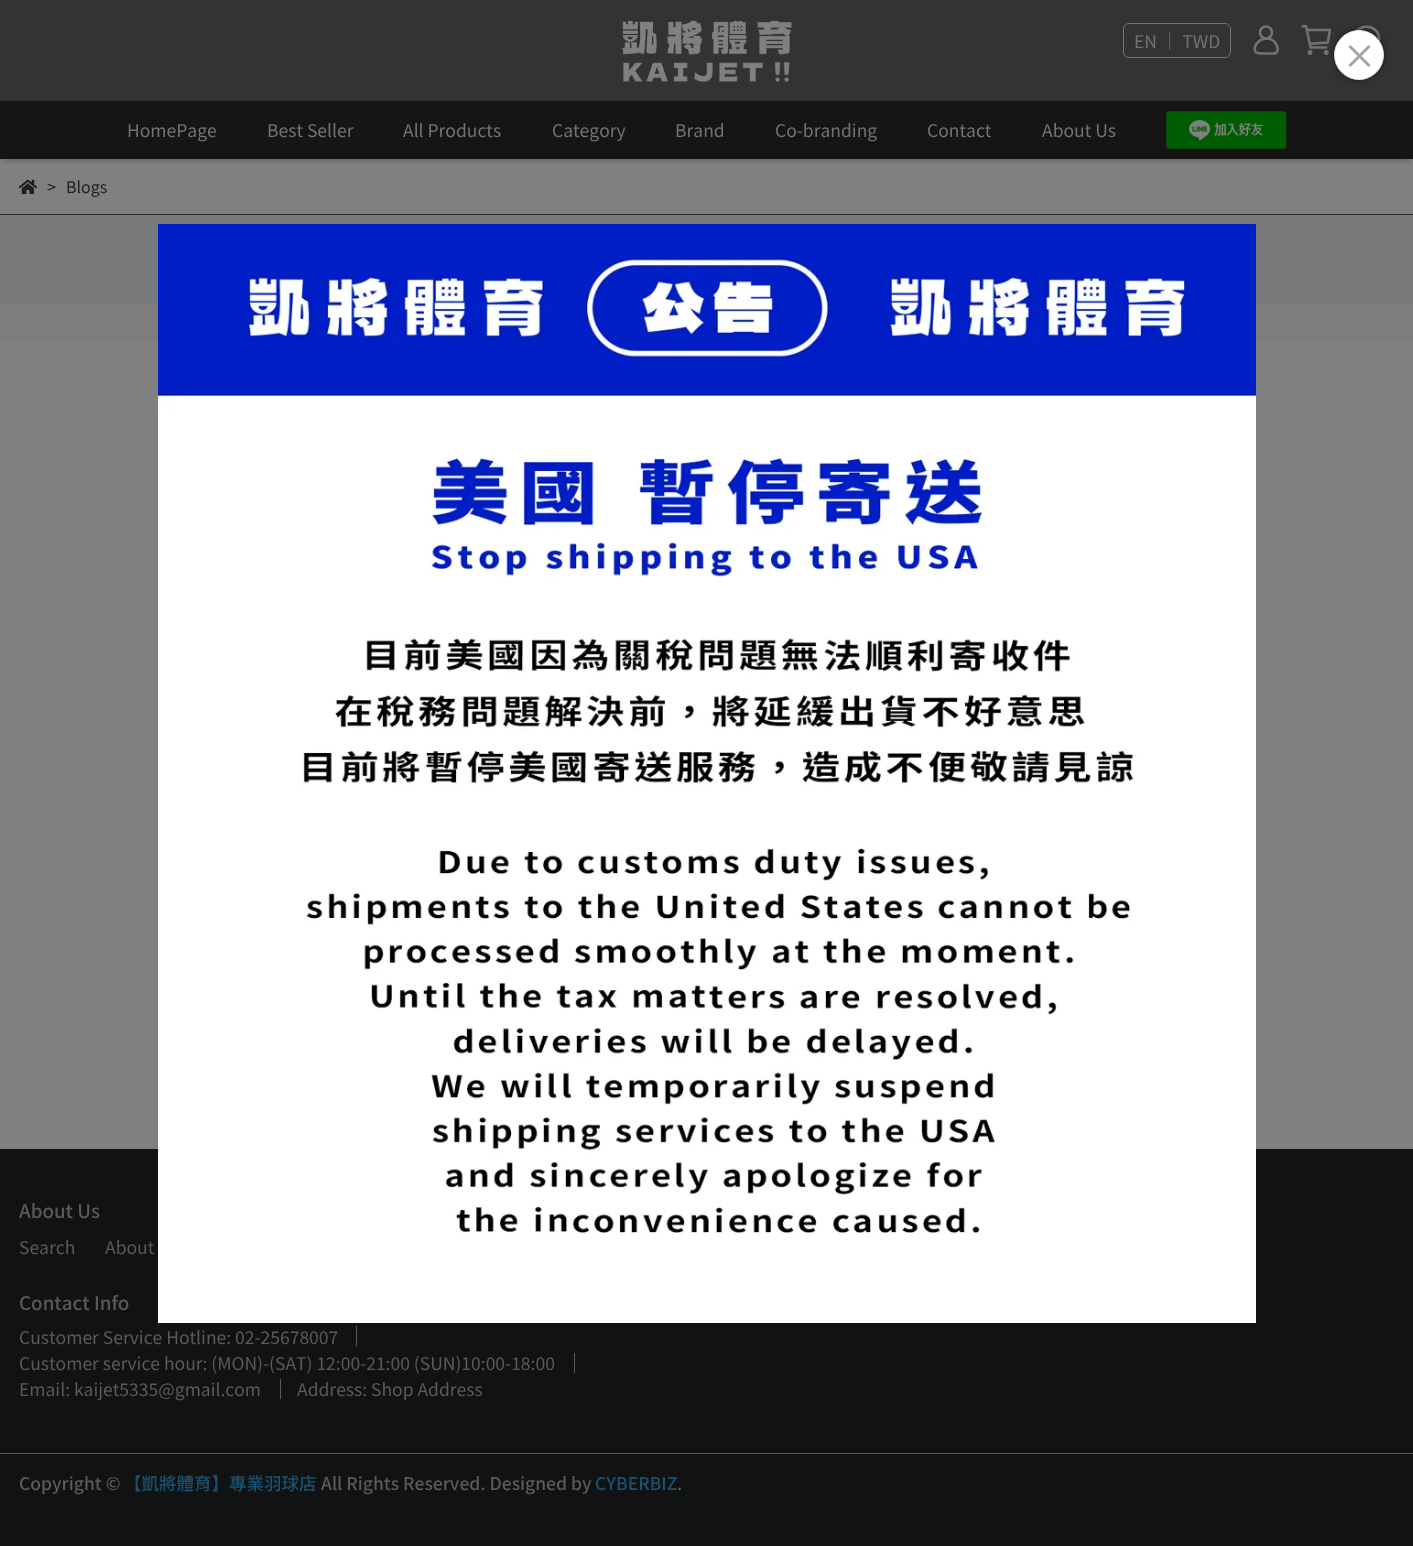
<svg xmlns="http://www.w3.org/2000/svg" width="1413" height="1546">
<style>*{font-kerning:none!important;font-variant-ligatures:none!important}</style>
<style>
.a{font:17.5px Noto Sans TC;fill:#737373}
.b{font:16px Noto Sans TC;fill:#1f1f1f}
.c{font:500 18.75px Noto Sans TC;fill:#5a5a5a}
.d{font:17.5px Noto Sans TC;fill:#5a5a5a}
.e{font:500 17.5px Noto Sans TC;fill:#5a5a5a}
.f{font:500 17.5px Noto Sans TC;fill:#1a5274}
</style>
<rect width="100%" height="100%" fill="#808080"/>
<path fill="#333" d="M0 0h1413v101H0z"/>
<image href="3.png" x="1301" y="25" width="30" height="30"/>
<path fill="none" stroke="#737373" stroke-width="2.5" stroke-linecap="round" stroke-linejoin="round" d="M1379 39c0 16-25 16-25 0c0-16.5 25-16.5 25 0z"/>
<rect fill="#00000080" filter="blur(2.5px)" x="1334" y="30" width="50" height="50" rx="25"/>
<circle fill="#fff" stroke="#e2e2e2" cx="1359" cy="55" r="24.5"/>
<path fill="#a3a3a3" d="M1350.5 45l20 20l-2 2l-20-20z"/>
<path fill="#a3a3a3" d="M1348.5 65l20-20l2 2l-20 20z"/>
<path fill="#7d7d7d" d="M0 304h1413v37H0z"/>
<path fill="#78797a" d="M0 215h1413v89H0z"/>
<path fill="#111212" d="M0 1149h1413v397H0z"/>
<image href="1.png" x="158" y="224" width="1098" height="1099"/>
<image href="2.png" x="622" y="20" width="170" height="63"/>
<rect fill="none" stroke="#737373" x="1123.5" y="23.5" width="107" height="34" rx="5.5"/>
<circle fill="none" stroke="#737373" stroke-width="2.5" cx="1266" cy="32.5" r="6"/>
<path fill="none" stroke="#737373" stroke-width="2.5" d="M1273.5 53.5h-9.5c-5.5 0-10.5 .5-9-6.5c1-3.5 3.5-6 7-7.5c14-5.5 20.5 14.5 11.5 14z"/>
<path fill="#00000033" filter="blur(2.5px)" d="M3 109h1408v52H3z"/>
<path fill="#151515" d="M0 101h1413v58H0z"/>
<image href="4.png" x="1166" y="111" width="121" height="38"/>
<path fill="#292929" d="M0 214h1413v1H0z"/>
<image href="5.png" x="18" y="179" width="19" height="15"/>
<path fill="#5a5a5a" d="M356 1326h1v20H356z"/>
<path fill="#5a5a5a" d="M574 1353h1v20H574z"/>
<path fill="#5a5a5a" d="M280 1379h1v20H280z"/>
<path fill="#5a5a5a" d="M0 1453h1413v1H0z"/>
<text class="a" x="1134" y="48">EN ｜ TWD</text>
<text class="a" x="127" y="137">HomePage</text>
<text class="a" x="267" y="137">Best Seller</text>
<text class="a" x="403" y="137">All Products</text>
<text class="a" x="552" y="137">Category</text>
<text class="a" x="675" y="137">Brand</text>
<text class="a" x="775" y="137">Co-branding</text>
<text class="a" x="927" y="137">Contact</text>
<text class="a" x="1042" y="137">About Us</text>
<text class="b" x="47" y="193">&gt;</text>
<text class="b" x="66" y="193">Blogs</text>
<text class="c" x="19" y="1218">About Us</text>
<text class="d" x="19" y="1254">Search</text>
<text class="d" x="105" y="1254">About</text>
<text class="c" x="19" y="1310">Contact Info</text>
<text class="d" x="19" y="1344">Customer Service Hotline: 02-25678007</text>
<text class="d" x="19" y="1370">Customer service hour: (MON)-(SAT) 12:00-21:00 (SUN)10:00-18:00</text>
<text class="d" x="19" y="1396">Email: kaijet5335@gmail.com</text>
<text class="d" x="297" y="1396">Address: Shop Address</text>
<text class="e" x="19" y="1490">Copyright ©</text>
<text class="f" x="124" y="1490">【凱將體育】專業羽球店</text>
<text class="e" x="321" y="1490">All Rights Reserved. Designed by</text>
<text class="f" x="595" y="1490">CYBERBIZ</text>
<text class="e" x="677" y="1490">.</text>
</svg>
